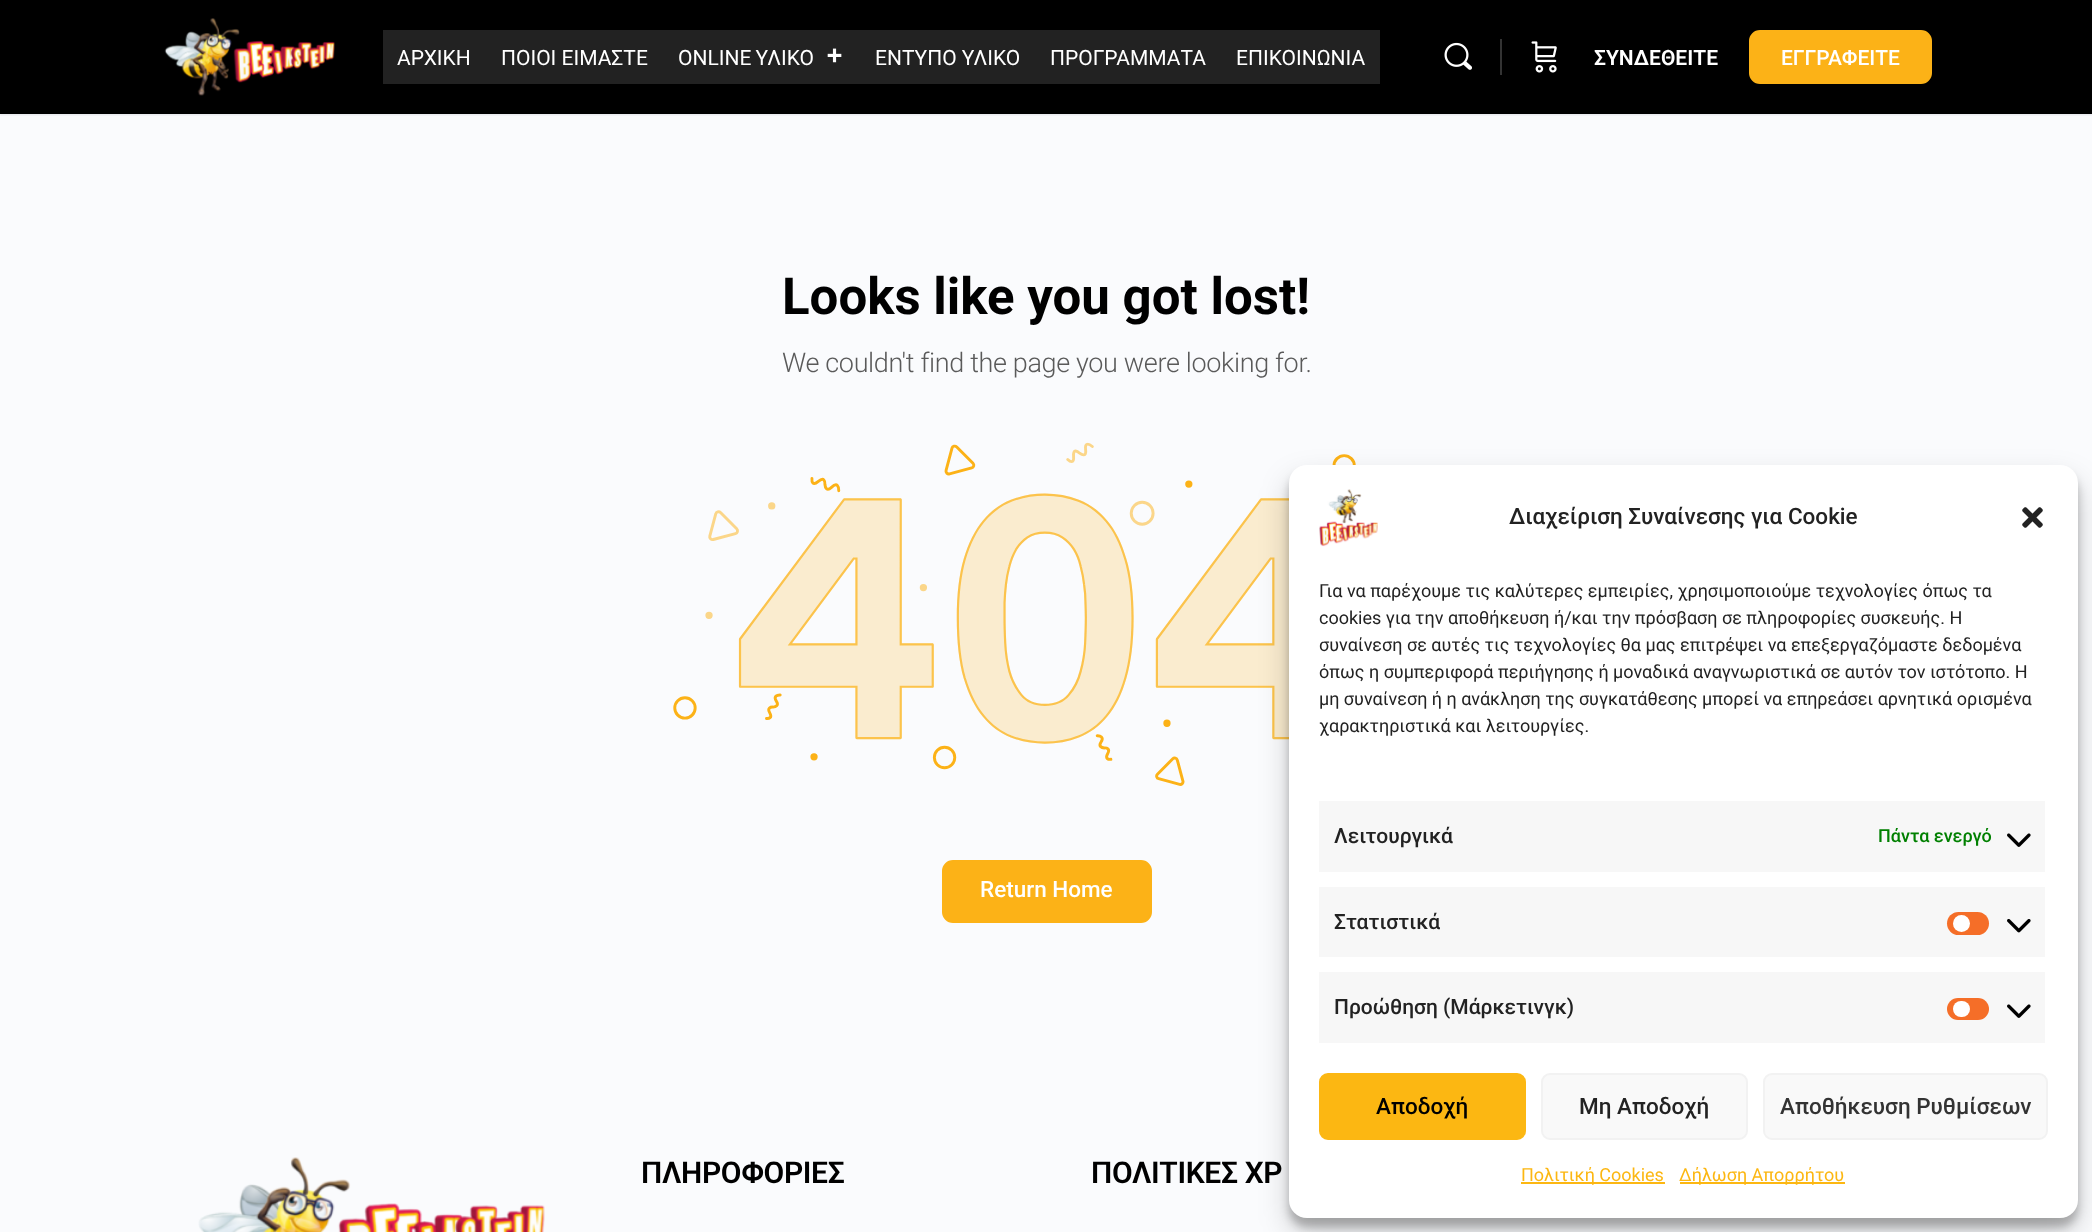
<svg xmlns="http://www.w3.org/2000/svg" width="2092" height="1232">
<style>
.a{font:21px Roboto;fill:#fff}
.b{font:600 21px Roboto;fill:#fff}
.c{font:500 21px Roboto;fill:#fff}
.d{font:bold 51px Roboto;fill:#000}
.e{font:300 27px Roboto;letter-spacing:-0.35px;fill:#5a5a5a}
.f{font:500 22.5px Roboto;fill:#fff}
.g{font:600 30px Roboto;letter-spacing:-0.35px;fill:#000}
.h{font:500 22.5px Roboto;fill:#222}
.i{font:18px Roboto;fill:#222}
.j{font:500 21px Roboto;fill:#222}
.k{font:500 18px Roboto;fill:#008000}
.l{font:500 22.5px Roboto;fill:#000}
.m{font:500 22.5px Roboto;fill:#333}
.n{font:18px Roboto;fill:#fcb712}
</style>
<rect width="100%" height="100%" fill="#fafbfd"/>
<path fill="#41476c26" filter="blur(1px)" d="M0 0h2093v114H0z"/>
<path fill="#8b8d9d0d" d="M0 114v2h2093v-114h-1v112z"/>
<path fill="#000" d="M0 0h2092v114H0z"/>
<image href="1.png" x="164" y="18" width="171" height="78"/>
<path fill="#222" d="M383 30h997v54H383z"/>
<image href="2.png" x="827" y="48" width="15" height="15"/>
<image href="3.png" x="1444" y="42" width="28" height="28"/>
<path fill="#333" d="M1500 39h2v36H1500z"/>
<image href="4.png" x="1531" y="41" width="26" height="32"/>
<rect fill="#fcb217" stroke="#fcb217" stroke-width="2" x="1750" y="31" width="181" height="52" rx="10"/>
<image href="5.png" x="673" y="442" width="683" height="344"/>
<rect fill="#fcb217" stroke="#fcb217" stroke-width="2" x="943" y="861" width="208" height="61" rx="10"/>
<image href="6.png" x="198" y="1157" width="347" height="75"/>
<rect fill="#0000003b" filter="blur(4.5px)" x="1289" y="474" width="789" height="753" rx="18"/>
<rect fill="#00000030" filter="blur(15px)" x="1289" y="480" width="789" height="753" rx="18"/>
<rect fill="#fff" x="1289" y="465" width="789" height="753" rx="18"/>
<image href="7.png" x="1319" y="489" width="59" height="58"/>
<image href="8.png" x="2022" y="507" width="21" height="21"/>
<path fill="#f7f7f7" d="M1319 801h726v71H1319z"/>
<image href="9.png" x="2007" y="833" width="24" height="14"/>
<path fill="#f7f7f7" d="M1319 887h726v70H1319z"/>
<rect fill="#f56e28" x="1947" y="912" width="42" height="23" rx="11.5"/>
<circle fill="#fff" cx="1961.5" cy="923.5" r="8.5"/>
<image href="10.png" x="2007" y="919" width="24" height="14"/>
<path fill="#f7f7f7" d="M1319 972h726v71H1319z"/>
<rect fill="#f56e28" x="1947" y="998" width="42" height="22" rx="11"/>
<rect fill="#fff" x="1953" y="1001" width="17" height="16" rx="8"/>
<image href="9.png" x="2007" y="1004" width="24" height="14"/>
<rect fill="#fcb712" stroke="#fcb712" stroke-width="2" x="1320" y="1074" width="205" height="65" rx="8"/>
<rect fill="#f9f9f9" stroke="#f2f2f2" stroke-width="2" x="1542" y="1074" width="205" height="65" rx="8"/>
<rect fill="#f9f9f9" stroke="#f2f2f2" stroke-width="2" x="1764" y="1074" width="283" height="65" rx="8"/>
<path fill="#fcb712" d="M1521 1182h144v2H1521z"/>
<path fill="#fcb712" d="M1680 1182h165v2H1680z"/>
<text class="a" x="397" y="65">ΑΡΧΙΚΗ</text>
<text class="a" x="501" y="65">ΠΟΙΟΙ ΕΙΜΑΣΤΕ</text>
<text class="a" x="678" y="65" word-spacing="-1">ONLINE ΥΛΙΚΟ</text>
<text class="a" x="875" y="65">ΕΝΤΥΠΟ ΥΛΙΚΟ</text>
<text class="a" x="1050" y="65">ΠΡΟΓΡΑΜΜΑΤΑ</text>
<text class="a" x="1236" y="65">ΕΠΙΚΟΙΝΩΝΙΑ</text>
<text class="b" x="1594" y="65">ΣΥΝΔΕΘΕΙΤΕ</text>
<text class="c" x="1781" y="65">ΕΓΓΡΑΦΕΙΤΕ</text>
<text class="d" x="782" y="314">Looks like you got lost!</text>
<text class="e" x="782" y="372">We couldn't find the page you were looking for.</text>
<text class="f" x="980" y="897">Return Home</text>
<text class="g" x="641" y="1183">ΠΛΗΡΟΦΟΡΙΕΣ</text>
<text class="g" x="1091" y="1183">ΠΟΛΙΤΙΚΕΣ ΧΡ</text>
<text class="h" x="1509" y="524">Διαχείριση Συναίνεσης για Cookie</text>
<text class="i" x="1319" y="597">Για να παρέχουμε τις καλύτερες εμπειρίες, χρησιμοποιούμε τεχνολογίες όπως τα</text>
<text class="i" x="1319" y="624">cookies για την αποθήκευση ή/και την πρόσβαση σε πληροφορίες συσκευής. Η</text>
<text class="i" x="1319" y="651">συναίνεση σε αυτές τις τεχνολογίες θα μας επιτρέψει να επεξεργαζόμαστε δεδομένα</text>
<text class="i" x="1319" y="678">όπως η συμπεριφορά περιήγησης ή μοναδικά αναγνωριστικά σε αυτόν τον ιστότοπο. Η</text>
<text class="i" x="1319" y="705">μη συναίνεση ή η ανάκληση της συγκατάθεσης μπορεί να επηρεάσει αρνητικά ορισμένα</text>
<text class="i" x="1319" y="732">χαρακτηριστικά και λειτουργίες.</text>
<text class="j" x="1334" y="843">Λειτουργικά</text>
<text class="k" x="1878" y="842">Πάντα ενεργό</text>
<text class="j" x="1334" y="929">Στατιστικά</text>
<text class="j" x="1334" y="1014">Προώθηση (Μάρκετινγκ)</text>
<text class="l" x="1376" y="1114">Αποδοχή</text>
<text class="h" x="1579" y="1114">Μη Αποδοχή</text>
<text class="m" x="1780" y="1114">Αποθήκευση Ρυθμίσεων</text>
<text class="n" x="1521" y="1181">Πολιτική Cookies</text>
<text class="n" x="1679" y="1181">Δήλωση Απορρήτου</text>
</svg>
